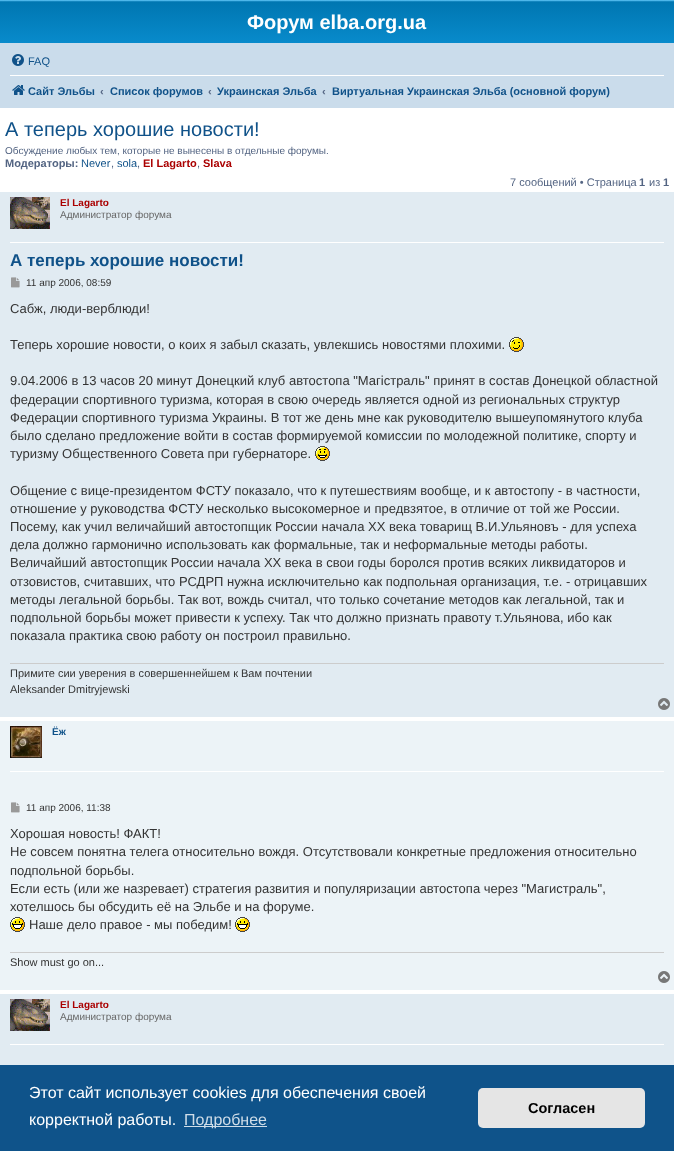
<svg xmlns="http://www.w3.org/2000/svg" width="674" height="1151">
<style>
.a{font:bold 20px Liberation Sans;fill:#fff}
.b{font:11px Liberation Sans;fill:#105289}
.c{font:bold 11px Liberation Sans;fill:#105289}
.d{font:bold 11px Liberation Sans;fill:#536482}
.e{font:20px Liberation Sans;fill:#105289}
.f{font:10px Liberation Sans;fill:#536482}
.g{font:11px Liberation Sans;fill:#536482}
.h{font:bold 11px Liberation Sans;fill:#a00}
.i{font:bold 10px Liberation Sans;fill:#a00}
.j{font:10px Liberation Sans;fill:#666}
.k{font:bold 17px Liberation Sans;fill:#105289}
.l{font:10px Liberation Sans;fill:#333}
.m{font:13px Liberation Sans;fill:#333}
.n{font:11px Liberation Sans;fill:#333}
.o{font:bold 10px Liberation Sans;fill:#105289}
.p{font:16px Liberation Sans;fill:#fff}
.q{font:16px Liberation Sans;fill:#cfdde8}
.r{font:bold 14.5px Liberation Sans;fill:#000}
</style>
<defs>
<linearGradient id="g1" gradientUnits="userSpaceOnUse" x1="337" y1="0" x2="337" y2="92"><stop offset="0" stop-color="#6aceff"/><stop offset="0.02" stop-color="#0076b1"/><stop offset="1" stop-color="#12a3eb"/></linearGradient>
</defs>
<rect width="100%" height="100%" fill="#fff"/>
<path fill="url(#g1)" d="M0 0h674v43H0z"/>
<path fill="#cadceb" d="M0 43h674v65H0z"/>
<image href="1.png" x="12" y="54" width="12" height="12"/>
<path fill="#fff" d="M10 75h654v1H10z"/>
<image href="2.png" x="12" y="85" width="13" height="10"/>
<path fill="#e1ebf2" d="M0 192h674v525H0z"/>
<path fill="#fff" d="M10 242h654v1H10z"/>
<image href="3.png" x="10" y="197" width="40" height="32"/>
<image href="4.png" x="11" y="277" width="9" height="11"/>
<image href="5.png" x="509" y="337" width="15" height="15"/>
<image href="6.png" x="315" y="446" width="15" height="15"/>
<path fill="#ccc" d="M10 663h654v1H10z"/>
<image href="7.png" x="658" y="698" width="12" height="12"/>
<path fill="#ecf3f7" d="M0 721h674v269H0z"/>
<path fill="#fff" d="M10 771h654v1H10z"/>
<image href="8.png" x="10" y="726" width="32" height="32"/>
<image href="9.png" x="11" y="802" width="9" height="11"/>
<image href="10.png" x="10" y="917" width="15" height="15"/>
<image href="10.png" x="235" y="917" width="15" height="15"/>
<path fill="#ccc" d="M10 952h654v1H10z"/>
<image href="11.png" x="658" y="971" width="12" height="12"/>
<path fill="#e1ebf2" d="M0 994h674v71H0z"/>
<path fill="#fff" d="M10 1044h654v1H10z"/>
<image href="3.png" x="10" y="999" width="40" height="32"/>
<path fill="#0f538a" d="M0 1065h674v86H0z"/>
<path fill="#cfdde8" d="M184 1126h83v1H184z"/>
<rect fill="#e5e5e5" x="478" y="1088" width="167" height="40" rx="5"/>
<text class="a" x="247" y="29">Форум elba.org.ua</text>
<text class="b" x="28" y="65">FAQ</text>
<text class="c" x="28" y="95">Сайт Эльбы</text>
<text class="d" x="100" y="95">‹</text>
<text class="c" x="110" y="95">Список форумов</text>
<text class="d" x="208" y="95">‹</text>
<text class="c" x="217" y="95">Украинская Эльба</text>
<text class="d" x="322" y="95">‹</text>
<text class="c" x="332" y="95">Виртуальная Украинская Эльба (основной форум)</text>
<text class="e" x="5" y="136">А теперь хорошие новости!</text>
<text class="f" x="5" y="154">Обсуждение любых тем, которые не вынесены в отдельные форумы.</text>
<text class="d" x="5" y="167">Модераторы:</text>
<text class="b" x="81" y="167">Never</text>
<text class="g" x="111" y="167">,</text>
<text class="b" x="117" y="167">sola</text>
<text class="g" x="137" y="167">,</text>
<text class="h" x="143" y="167">El Lagarto</text>
<text class="g" x="197" y="167">,</text>
<text class="h" x="203" y="167">Slava</text>
<text class="g" x="510" y="186">7 сообщений • Страница</text>
<text class="d" x="639" y="186">1</text>
<text class="g" x="649" y="186">из</text>
<text class="d" x="663" y="186">1</text>
<text class="i" x="60" y="206">El Lagarto</text>
<text class="j" x="60" y="218">Администратор форума</text>
<text class="k" x="10" y="266">А теперь хорошие новости!</text>
<text class="l" x="26" y="286">11 апр 2006, 08:59</text>
<text class="m" x="10" y="313">Сабж, люди-верблюди!</text>
<text class="m" x="10" y="349">Теперь хорошие новости, о коих я забыл сказать, увлекшись новостями плохими.</text>
<text class="m" x="10" y="385">9.04.2006 в 13 часов 20 минут Донецкий клуб автостопа "Магiстраль" принят в состав Донецкой областной</text>
<text class="m" x="10" y="404">федерации спортивного туризма, которая в свою очередь является одной из региональных структур</text>
<text class="m" x="10" y="422">Федерации спортивного туризма Украины. В тот же день мне как руководителю вышеупомянутого клуба</text>
<text class="m" x="10" y="440">было сделано предложение войти в состав формируемой комиссии по молодежной политике, спорту и</text>
<text class="m" x="10" y="458">туризму Общественного Совета при губернаторе.</text>
<text class="m" x="10" y="495">Общение с вице-президентом ФСТУ показало, что к путешествиям вообще, и к автостопу - в частности,</text>
<text class="m" x="10" y="513">отношение у руководства ФСТУ несколько высокомерное и предвзятое, в отличие от той же России.</text>
<text class="m" x="10" y="531">Посему, как учил величайший автостопщик России начала ХХ века товарищ В.И.Ульяновъ - для успеха</text>
<text class="m" x="10" y="549">дела должно гармонично использовать как формальные, так и неформальные методы работы.</text>
<text class="m" x="10" y="567">Величайший автостопщик России начала ХХ века в свои годы боролся против всяких ликвидаторов и</text>
<text class="m" x="10" y="586">отзовистов, считавших, что РСДРП нужна исключительно как подпольная организация, т.е. - отрицавших</text>
<text class="m" x="10" y="604">методы легальной борьбы. Так вот, вождь считал, что только сочетание методов как легальной, так и</text>
<text class="m" x="10" y="622">подпольной борьбы может привести к успеху. Так что должно признать правоту т.Ульянова, ибо как</text>
<text class="m" x="10" y="640">показала практика свою работу он построил правильно.</text>
<text class="n" x="10" y="677">Примите сии уверения в совершеннейшем к Вам почтении</text>
<text class="n" x="10" y="693">Aleksander Dmitryjewski</text>
<text class="o" x="52" y="735">Ёж</text>
<text class="l" x="26" y="811">11 апр 2006, 11:38</text>
<text class="m" x="10" y="838">Хорошая новость! ФАКТ!</text>
<text class="m" x="10" y="856">Не совсем понятна телега относительно вождя. Отсутствовали конкретные предложения относительно</text>
<text class="m" x="10" y="875">подпольной борьбы.</text>
<text class="m" x="10" y="893">Если есть (или же назревает) стратегия развития и популяризации автостопа через "Магистраль",</text>
<text class="m" x="10" y="911">хотелшось бы обсудить её на Эльбе и на форуме.</text>
<text class="m" x="29" y="929">Наше дело правое - мы победим!</text>
<text class="n" x="10" y="966">Show must go on...</text>
<text class="i" x="60" y="1008">El Lagarto</text>
<text class="j" x="60" y="1020">Администратор форума</text>
<text class="p" x="29" y="1098">Этот сайт использует cookies для обеспечения своей</text>
<text class="p" x="29" y="1125">корректной работы.</text>
<text class="q" x="184" y="1125">Подробнее</text>
<text class="r" x="528" y="1113">Согласен</text>
</svg>
